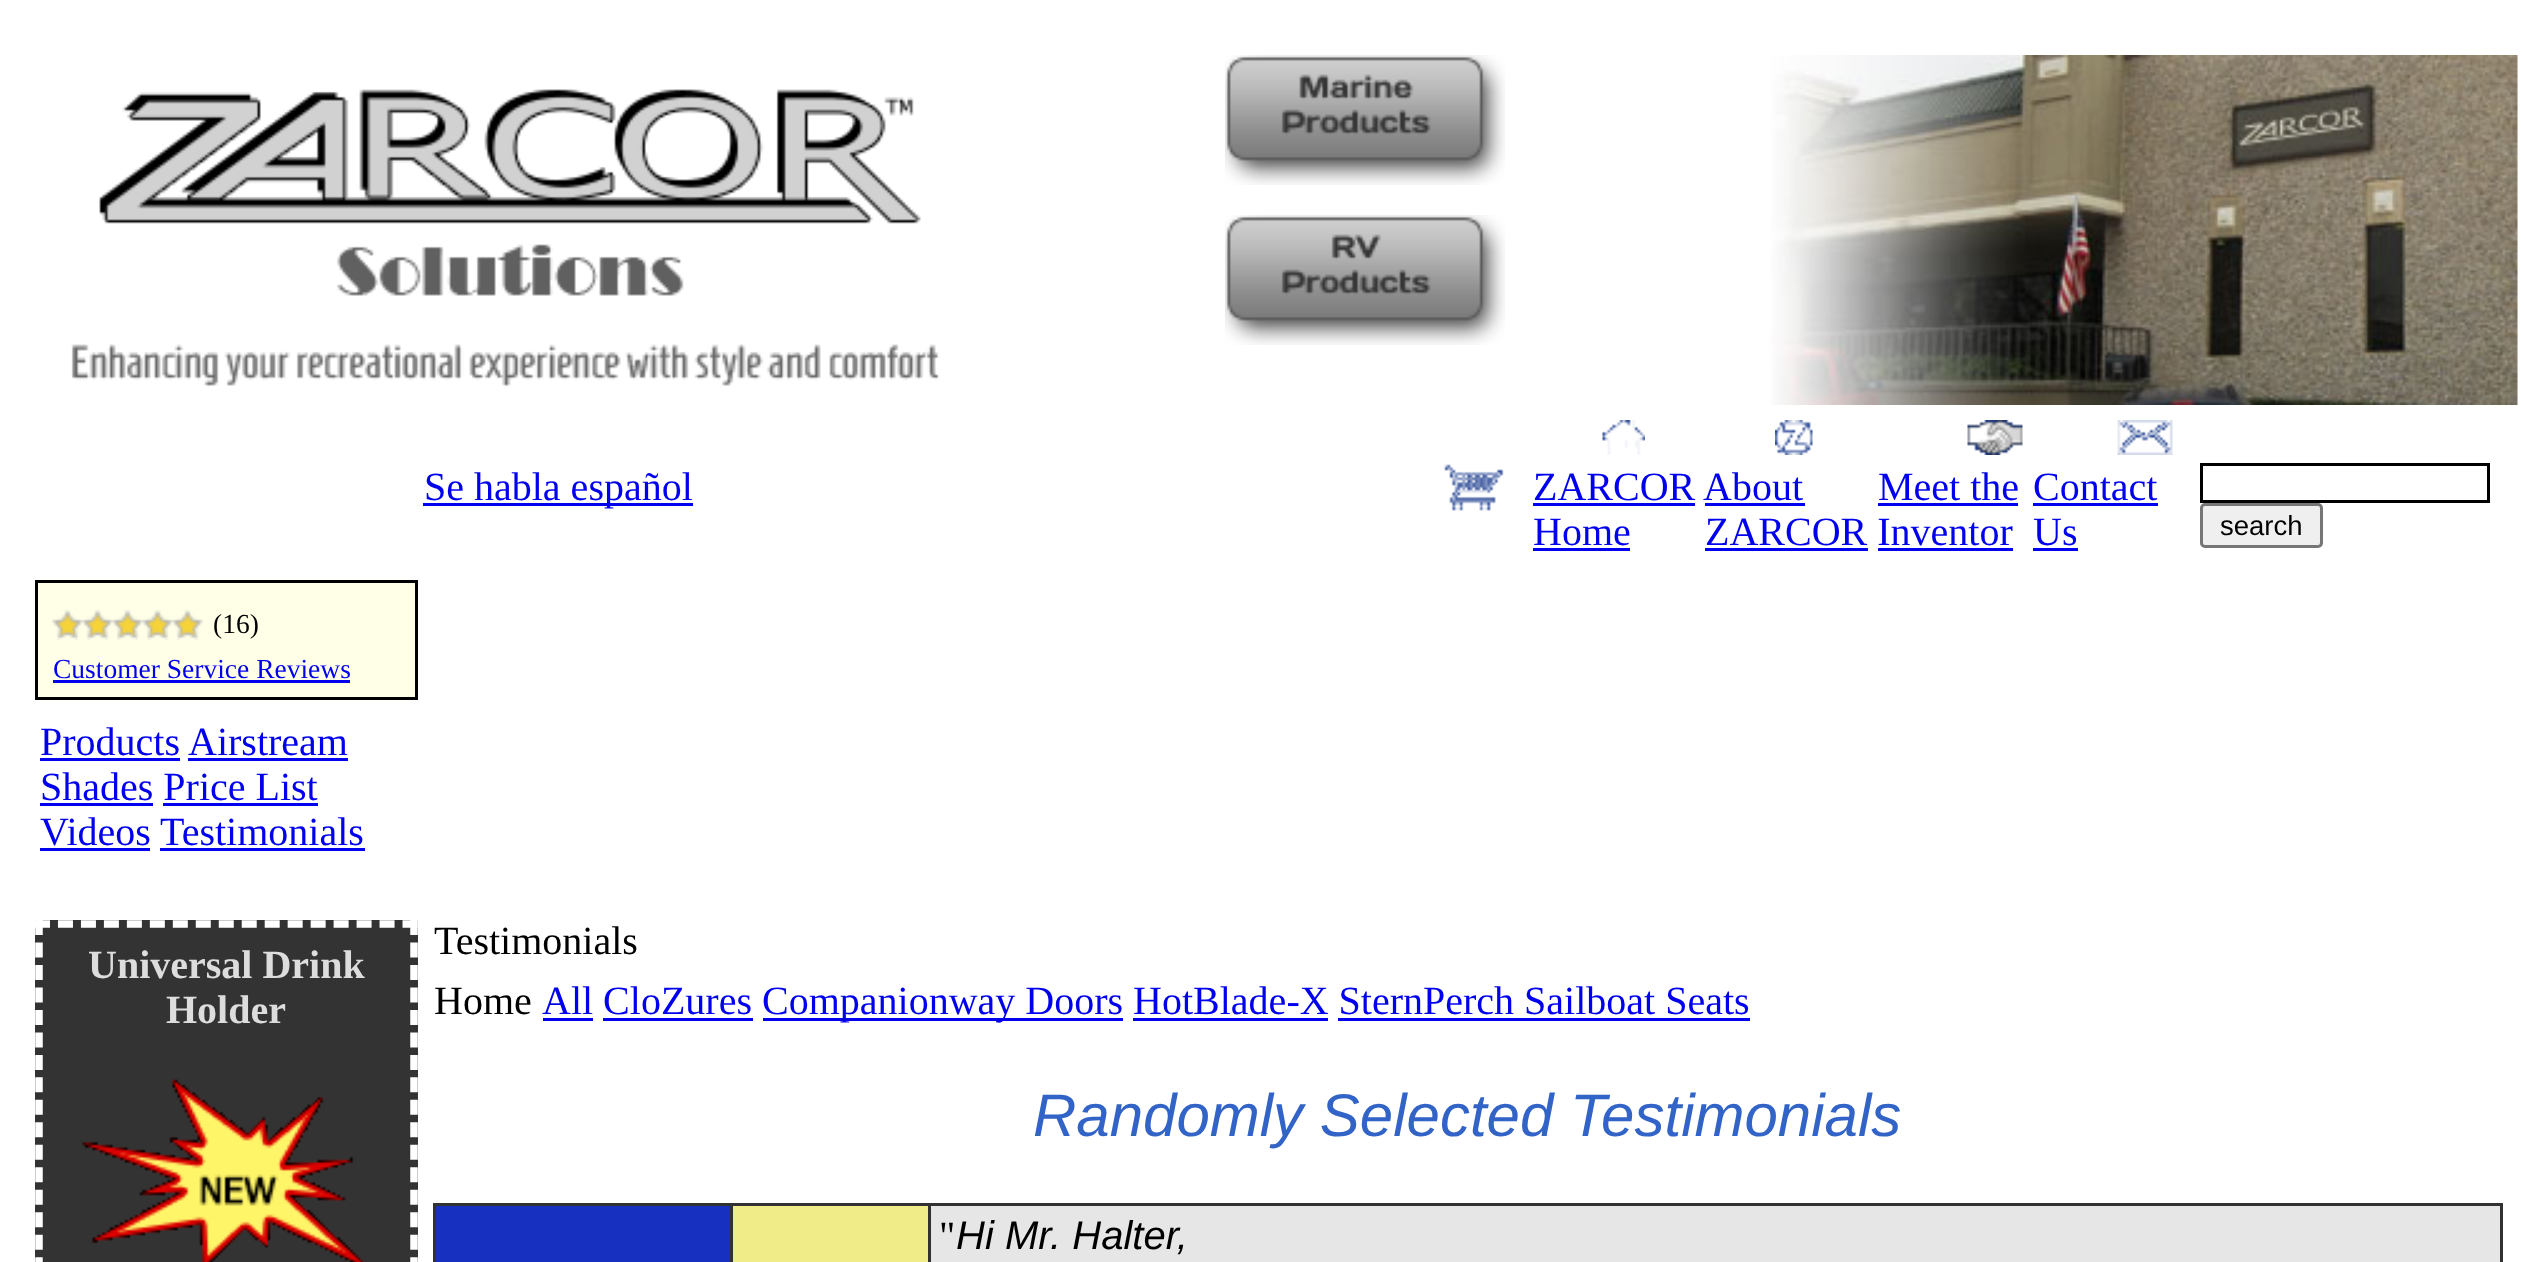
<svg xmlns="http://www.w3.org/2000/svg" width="2541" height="1262">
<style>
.a{font:40px Liberation Serif;fill:#00e}
.b{font:27.5px Liberation Sans;fill:#000}
.c{font:27.5px Liberation Serif;fill:#000}
.d{font:27.5px Liberation Serif;fill:#00e}
.e{font:bold 40px Liberation Serif;fill:#ddd}
.f{font:40px Liberation Serif;fill:#000}
.g{font:italic 60px Liberation Sans;fill:#3264c7}
.h{font:italic 40px Liberation Sans;fill:#000}
</style>
<rect width="100%" height="100%" fill="#fff"/>
<image href="1.png" x="71" y="89" width="869" height="299"/>
<image href="2.png" x="1225" y="55" width="280" height="130"/>
<image href="3.png" x="1225" y="215" width="280" height="130"/>
<image href="4.png" x="1771" y="55" width="747" height="350"/>
<path fill="#00e" d="M423 503h270v3H423z"/>
<image href="5.png" x="1444" y="464" width="60" height="47"/>
<image href="6.png" x="1602" y="420" width="43" height="35"/>
<path fill="#00e" d="M1533 503h162v3H1533z"/>
<path fill="#00e" d="M1533 548h97v3H1533z"/>
<image href="7.png" x="1967" y="420" width="56" height="35"/>
<path fill="#00e" d="M1878 503h140v3H1878z"/>
<path fill="#00e" d="M1878 548h135v3H1878z"/>
<image href="8.png" x="2117" y="420" width="56" height="35"/>
<path fill="#00e" d="M2033 503h125v3H2033z"/>
<path fill="#00e" d="M2033 548h45v3H2033z"/>
<path fill="none" stroke="#000" stroke-width="3" d="M2201.5 464.5h287v37H2201.5z"/>
<rect fill="#efefef" stroke="#767676" stroke-width="3" x="2201.5" y="504.5" width="120" height="42" rx="3.5"/>
<image href="9.png" x="1775" y="420" width="38" height="35"/>
<path fill="#00e" d="M1705 503h100v3H1705z"/>
<path fill="#00e" d="M1705 548h163v3H1705z"/>
<path fill="#ffffe8" stroke="#000" stroke-width="3" d="M36.5 581.5h380v117H36.5z"/>
<image href="10.png" x="52" y="610" width="31" height="30"/>
<image href="11.png" x="82" y="610" width="31" height="30"/>
<image href="11.png" x="112" y="610" width="31" height="30"/>
<image href="11.png" x="142" y="610" width="31" height="30"/>
<image href="11.png" x="172" y="610" width="31" height="30"/>
<path fill="#00e" d="M53 680h297v3H53z"/>
<path fill="#00e" d="M40 758h140v3H40z"/>
<path fill="#00e" d="M188 758h160v3H188z"/>
<path fill="#00e" d="M40 803h113v3H40z"/>
<path fill="#00e" d="M163 803h155v3H163z"/>
<path fill="#00e" d="M40 848h110v3H40z"/>
<path fill="#00e" d="M160 848h205v3H160z"/>
<path fill="#333" d="M35 920h383v342H35z"/>
<path fill="none" stroke="#fff" stroke-width="7.5" stroke-dasharray="15 7.97" d="M35 924h382.5"/>
<path fill="none" stroke="#fff" stroke-width="7.5" stroke-dasharray="15 7.48" d="M414 920v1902.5"/>
<path fill="none" stroke="#fff" stroke-width="7.5" stroke-dasharray="15 7.48" d="M39 920v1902.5"/>
<image href="12.png" x="82" y="1079" width="282" height="183"/>
<path fill="#00e" d="M543 1018h50v3H543z"/>
<path fill="#00e" d="M763 1018h360v3H763z"/>
<path fill="#00e" d="M603 1018h150v3H603z"/>
<path fill="#00e" d="M1133 1018h195v3H1133z"/>
<path fill="#00e" d="M1338 1018h412v3H1338z"/>
<path fill="#1830c0" d="M436 1206h294v56H436z"/>
<path fill="#323232" d="M928 1203h1575v3H928z"/>
<path fill="#323232" d="M928 1203h3v59H928z"/>
<path fill="#323232" d="M730 1203h200v3H730z"/>
<path fill="#323232" d="M730 1203h3v59H730z"/>
<path fill="#323232" d="M433 1203h300v3H433z"/>
<path fill="#323232" d="M433 1203h3v59H433z"/>
<path fill="#f0ec87" d="M733 1206h195v56H733z"/>
<path fill="#e6e6e6" d="M931 1206h1569v56H931z"/>
<path fill="#323232" d="M2500 1203h3v59H2500z"/>
<text class="a" x="424" y="500">Se habla español</text>
<text class="a" x="1533" y="500">ZARCOR About</text>
<text class="a" x="1533" y="545">Home</text>
<text class="a" x="1878" y="500">Meet the</text>
<text class="a" x="2033" y="500">Contact</text>
<text class="a" x="2033" y="545">Us</text>
<text class="b" x="2220" y="535">search</text>
<text class="a" x="1705" y="545">ZARCOR Inventor</text>
<text class="c" x="213" y="633">(16)</text>
<text class="d" x="53" y="678">Customer Service Reviews</text>
<text class="a" x="40" y="755">Products</text>
<text class="a" x="188" y="755">Airstream</text>
<text class="a" x="40" y="800">Shades Price List</text>
<text class="a" x="40" y="845">Videos</text>
<text class="a" x="160" y="845">Testimonials</text>
<text class="e" x="88" y="978">Universal Drink</text>
<text class="e" x="166" y="1023">Holder</text>
<text class="f" x="434" y="954">Testimonials</text>
<text class="f" x="434" y="1014">Home</text>
<text class="a" x="542" y="1014">All CloZures</text>
<text class="a" x="762" y="1014">Companionway Doors HotBlade-X SternPerch Sailboat Seats</text>
<text class="g" x="1033" y="1136">Randomly Selected Testimonials</text>
<text class="f" x="939" y="1249">"</text>
<text class="h" x="956" y="1249">Hi Mr. Halter,</text>
</svg>
